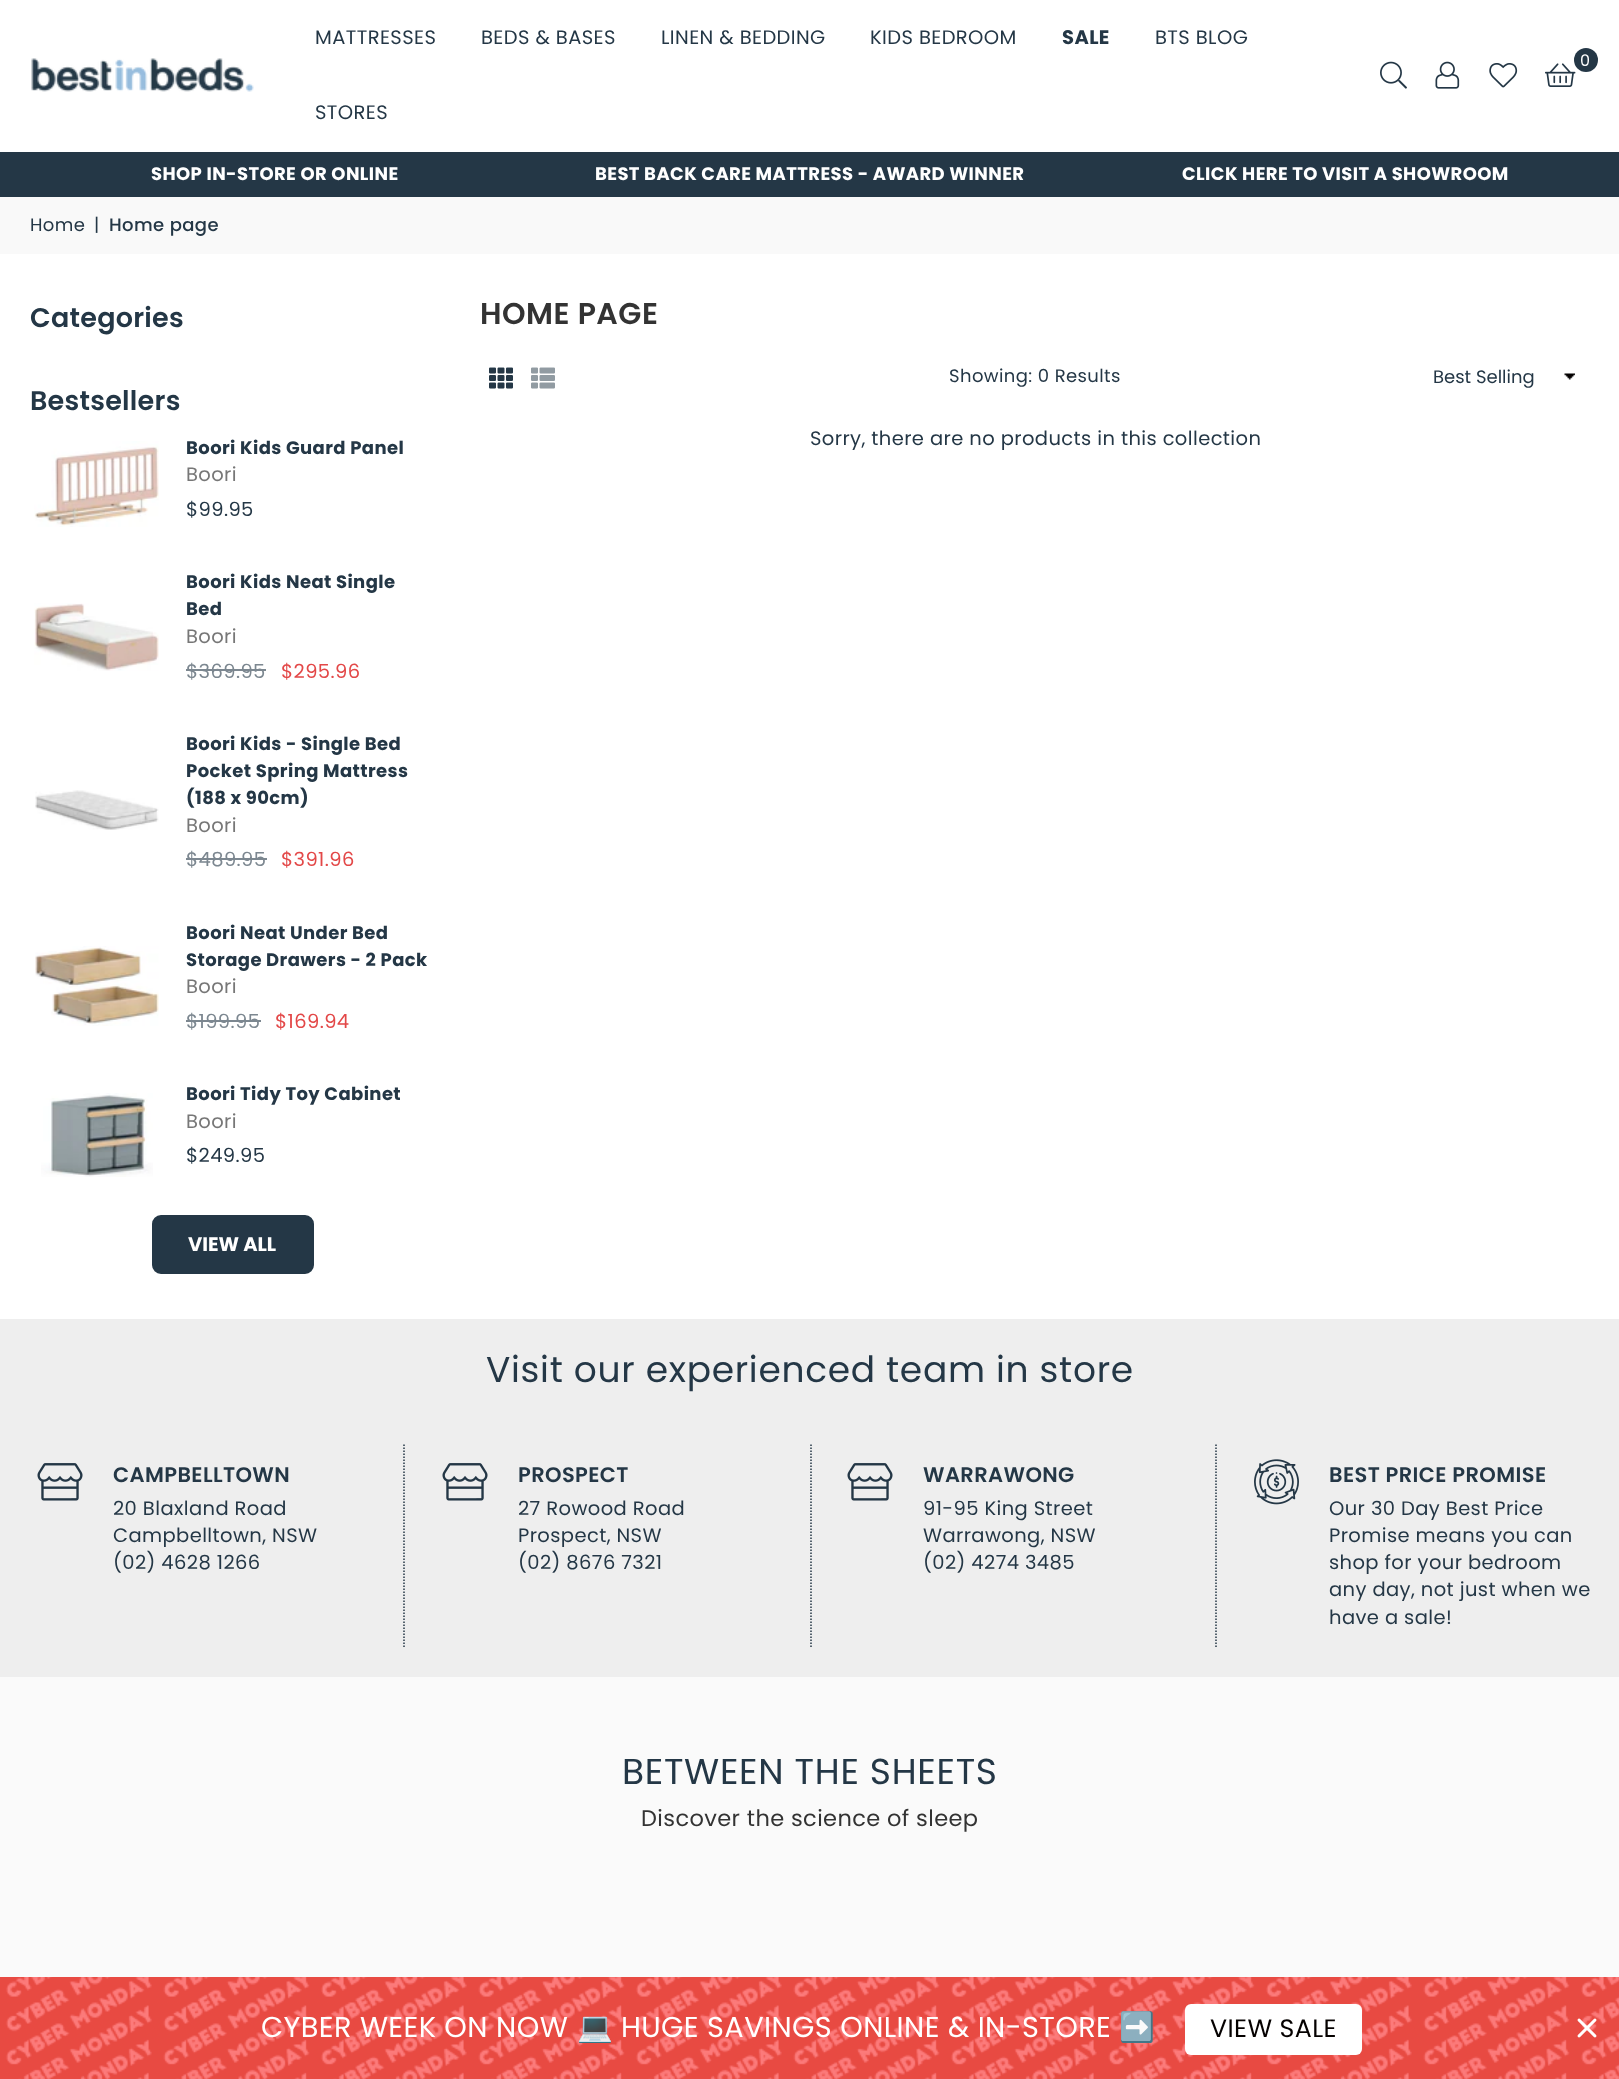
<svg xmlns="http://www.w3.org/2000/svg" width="1619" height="2079">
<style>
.a{font:19.5px Poppins;letter-spacing:0.4px;fill:#243746}
.b{font:bold 19.5px Poppins;letter-spacing:0.4px;fill:#243746}
.c{font:16px Poppins;letter-spacing:0.4px;fill:#fff}
.d{font:bold 18px Poppins;letter-spacing:0.4px;fill:#fff}
.e{font:18px Poppins;letter-spacing:0.4px;fill:#243746}
.f{font:500 18px Poppins;letter-spacing:0.4px;fill:#243746}
.g{font:600 27px Poppins;letter-spacing:0.25px;fill:#243746}
.h{font:bold 18px Poppins;letter-spacing:0.4px;fill:#243746}
.i{font:19.5px Poppins;letter-spacing:0.4px;fill:#777}
.j{font:19.5px Poppins;letter-spacing:0.4px;fill:#7c8790}
.k{font:19.5px Poppins;letter-spacing:0.4px;fill:#e34848}
.l{font:bold 19.5px Poppins;fill:#fff}
.m{font:600 30px Poppins;letter-spacing:0.5px;fill:#333}
.n{font:18px Poppins;fill:#243746}
.o{font:36px Poppins;letter-spacing:0.7px;fill:#243746}
.p{font:600 21px Poppins;letter-spacing:0.4px;fill:#243746}
.q{font:22.5px Poppins;letter-spacing:0.4px;fill:#333}
.r{font:28.75px Poppins;letter-spacing:0.4px;fill:#fff}
.s{font:28.75px Noto Color Emoji;letter-spacing:0.4px;fill:#fff}
.t{font:25.25px Poppins;letter-spacing:0.4px;fill:#050100}
</style>
<rect width="100%" height="100%" fill="#fff"/>
<image href="1.png" x="31" y="58" width="223" height="34"/>
<image href="2.png" x="1545" y="63" width="31" height="24"/>
<circle fill="#243746" cx="1586" cy="60" r="12"/>
<image href="3.png" x="1380" y="61" width="27" height="28"/>
<image href="4.png" x="1435" y="61" width="25" height="28"/>
<image href="5.png" x="1489" y="63" width="29" height="25"/>
<path fill="#243746" d="M0 152h1619v45H0z"/>
<path fill="#f9f9f9" d="M0 197h1619v57H0z"/>
<image href="6.png" x="34" y="441" width="125" height="86"/>
<image href="7.png" x="34" y="603" width="125" height="68"/>
<path fill="#7c8790" d="M186 669h80v2H186z"/>
<image href="8.png" x="35" y="790" width="124" height="40"/>
<path fill="#7c8790" d="M186 858h81v2H186z"/>
<image href="9.png" x="35" y="946" width="124" height="80"/>
<path fill="#7c8790" d="M186 1020h75v2H186z"/>
<image href="10.png" x="41" y="1093" width="112" height="84"/>
<rect fill="#243746" stroke="#243746" stroke-width="2" x="153" y="1216" width="160" height="57" rx="8"/>
<image href="11.png" x="489" y="367" width="24" height="22"/>
<image href="12.png" x="531" y="367" width="24" height="22"/>
<image href="13.png" x="1564" y="373" width="11" height="7"/>
<path fill="#eee" d="M0 1319h1619v358H0z"/>
<image href="14.png" x="37" y="1463" width="46" height="38"/>
<path fill="none" stroke="#243746" stroke-width="1.5" stroke-dasharray="1.5 1.5" d="M404 1444.5v202.5"/>
<image href="14.png" x="442" y="1463" width="46" height="38"/>
<path fill="none" stroke="#243746" stroke-width="1.5" stroke-dasharray="1.5 1.5" d="M811 1444.5v202.5"/>
<image href="14.png" x="847" y="1463" width="46" height="38"/>
<path fill="none" stroke="#243746" stroke-width="1.5" stroke-dasharray="1.5 1.5" d="M1216 1444.5v202.5"/>
<image href="15.png" x="1254" y="1459" width="45" height="46"/>
<path fill="#fafafa" d="M0 1677h1619v300H0z"/>
<image href="16.png" x="0" y="1977" width="1619" height="102"/>
<rect fill="#fff" x="1185" y="2004" width="177" height="51" rx="6"/>
<image href="17.png" x="1577" y="2018" width="20" height="20"/>
<text class="a" x="315" y="44">MATTRESSES</text>
<text class="a" x="481" y="44">BEDS &amp; BASES</text>
<text class="a" x="661" y="44">LINEN &amp; BEDDING</text>
<text class="a" x="870" y="44">KIDS BEDROOM</text>
<text class="b" x="1062" y="44">SALE</text>
<text class="a" x="1155" y="44">BTS BLOG</text>
<text class="a" x="315" y="119">STORES</text>
<text class="c" x="1580" y="66">0</text>
<text class="d" x="151" y="180">SHOP IN-STORE OR ONLINE</text>
<text class="d" x="595" y="180">BEST BACK CARE MATTRESS - AWARD WINNER</text>
<text class="d" x="1182" y="180">CLICK HERE TO VISIT A SHOWROOM</text>
<text class="e" x="30" y="231">Home</text>
<text class="e" x="94" y="231">|</text>
<text class="f" x="109" y="231">Home page</text>
<text class="g" x="30" y="327">Categories</text>
<text class="g" x="30" y="410">Bestsellers</text>
<text class="h" x="186" y="454">Boori Kids Guard Panel</text>
<text class="i" x="186" y="481">Boori</text>
<text class="a" x="186" y="516">$99.95</text>
<text class="h" x="186" y="588">Boori Kids Neat Single</text>
<text class="h" x="186" y="615">Bed</text>
<text class="i" x="186" y="643">Boori</text>
<text class="j" x="186" y="678">$369.95</text>
<text class="k" x="281" y="678">$295.96</text>
<text class="h" x="186" y="750">Boori Kids - Single Bed</text>
<text class="h" x="186" y="777">Pocket Spring Mattress</text>
<text class="h" x="186" y="804">(188 x 90cm)</text>
<text class="i" x="186" y="832">Boori</text>
<text class="j" x="186" y="866">$489.95</text>
<text class="k" x="281" y="866">$391.96</text>
<text class="h" x="186" y="939">Boori Neat Under Bed</text>
<text class="h" x="186" y="966">Storage Drawers - 2 Pack</text>
<text class="i" x="186" y="993">Boori</text>
<text class="j" x="186" y="1028">$199.95</text>
<text class="k" x="275" y="1028">$169.94</text>
<text class="h" x="186" y="1100">Boori Tidy Toy Cabinet</text>
<text class="i" x="186" y="1128">Boori</text>
<text class="a" x="186" y="1162">$249.95</text>
<text class="l" x="188" y="1251">VIEW ALL</text>
<text class="m" x="480" y="324">HOME PAGE</text>
<text class="e" x="949" y="382">Showing: 0 Results</text>
<text class="n" x="1433" y="383">Best Selling</text>
<text class="a" x="810" y="445">Sorry, there are no products in this collection</text>
<text class="o" x="486" y="1382">Visit our experienced team in store</text>
<text class="p" x="113" y="1482">CAMPBELLTOWN</text>
<text class="a" x="113" y="1515">20 Blaxland Road</text>
<text class="a" x="113" y="1542">Campbelltown, NSW</text>
<text class="a" x="113" y="1569">(02) 4628 1266</text>
<text class="p" x="518" y="1482">PROSPECT</text>
<text class="a" x="518" y="1515">27 Rowood Road</text>
<text class="a" x="518" y="1542">Prospect, NSW</text>
<text class="a" x="518" y="1569">(02) 8676 7321</text>
<text class="p" x="923" y="1482">WARRAWONG</text>
<text class="a" x="923" y="1515">91-95 King Street</text>
<text class="a" x="923" y="1542">Warrawong, NSW</text>
<text class="a" x="923" y="1569">(02) 4274 3485</text>
<text class="p" x="1329" y="1482">BEST PRICE PROMISE</text>
<text class="a" x="1329" y="1515">Our 30 Day Best Price</text>
<text class="a" x="1329" y="1542">Promise means you can</text>
<text class="a" x="1329" y="1569">shop for your bedroom</text>
<text class="a" x="1329" y="1596">any day, not just when we</text>
<text class="a" x="1329" y="1624">have a sale!</text>
<text class="o" x="622" y="1784">BETWEEN THE SHEETS</text>
<text class="q" x="641" y="1826">Discover the science of sleep</text>
<text class="r" x="261" y="2037">CYBER WEEK ON NOW</text>
<text class="s" x="577" y="2037">💻</text>
<text class="r" x="621" y="2037">HUGE SAVINGS ONLINE &amp; IN-STORE</text>
<text class="s" x="1119" y="2037">➡️</text>
<text class="t" x="1210" y="2037">VIEW SALE</text>
</svg>
